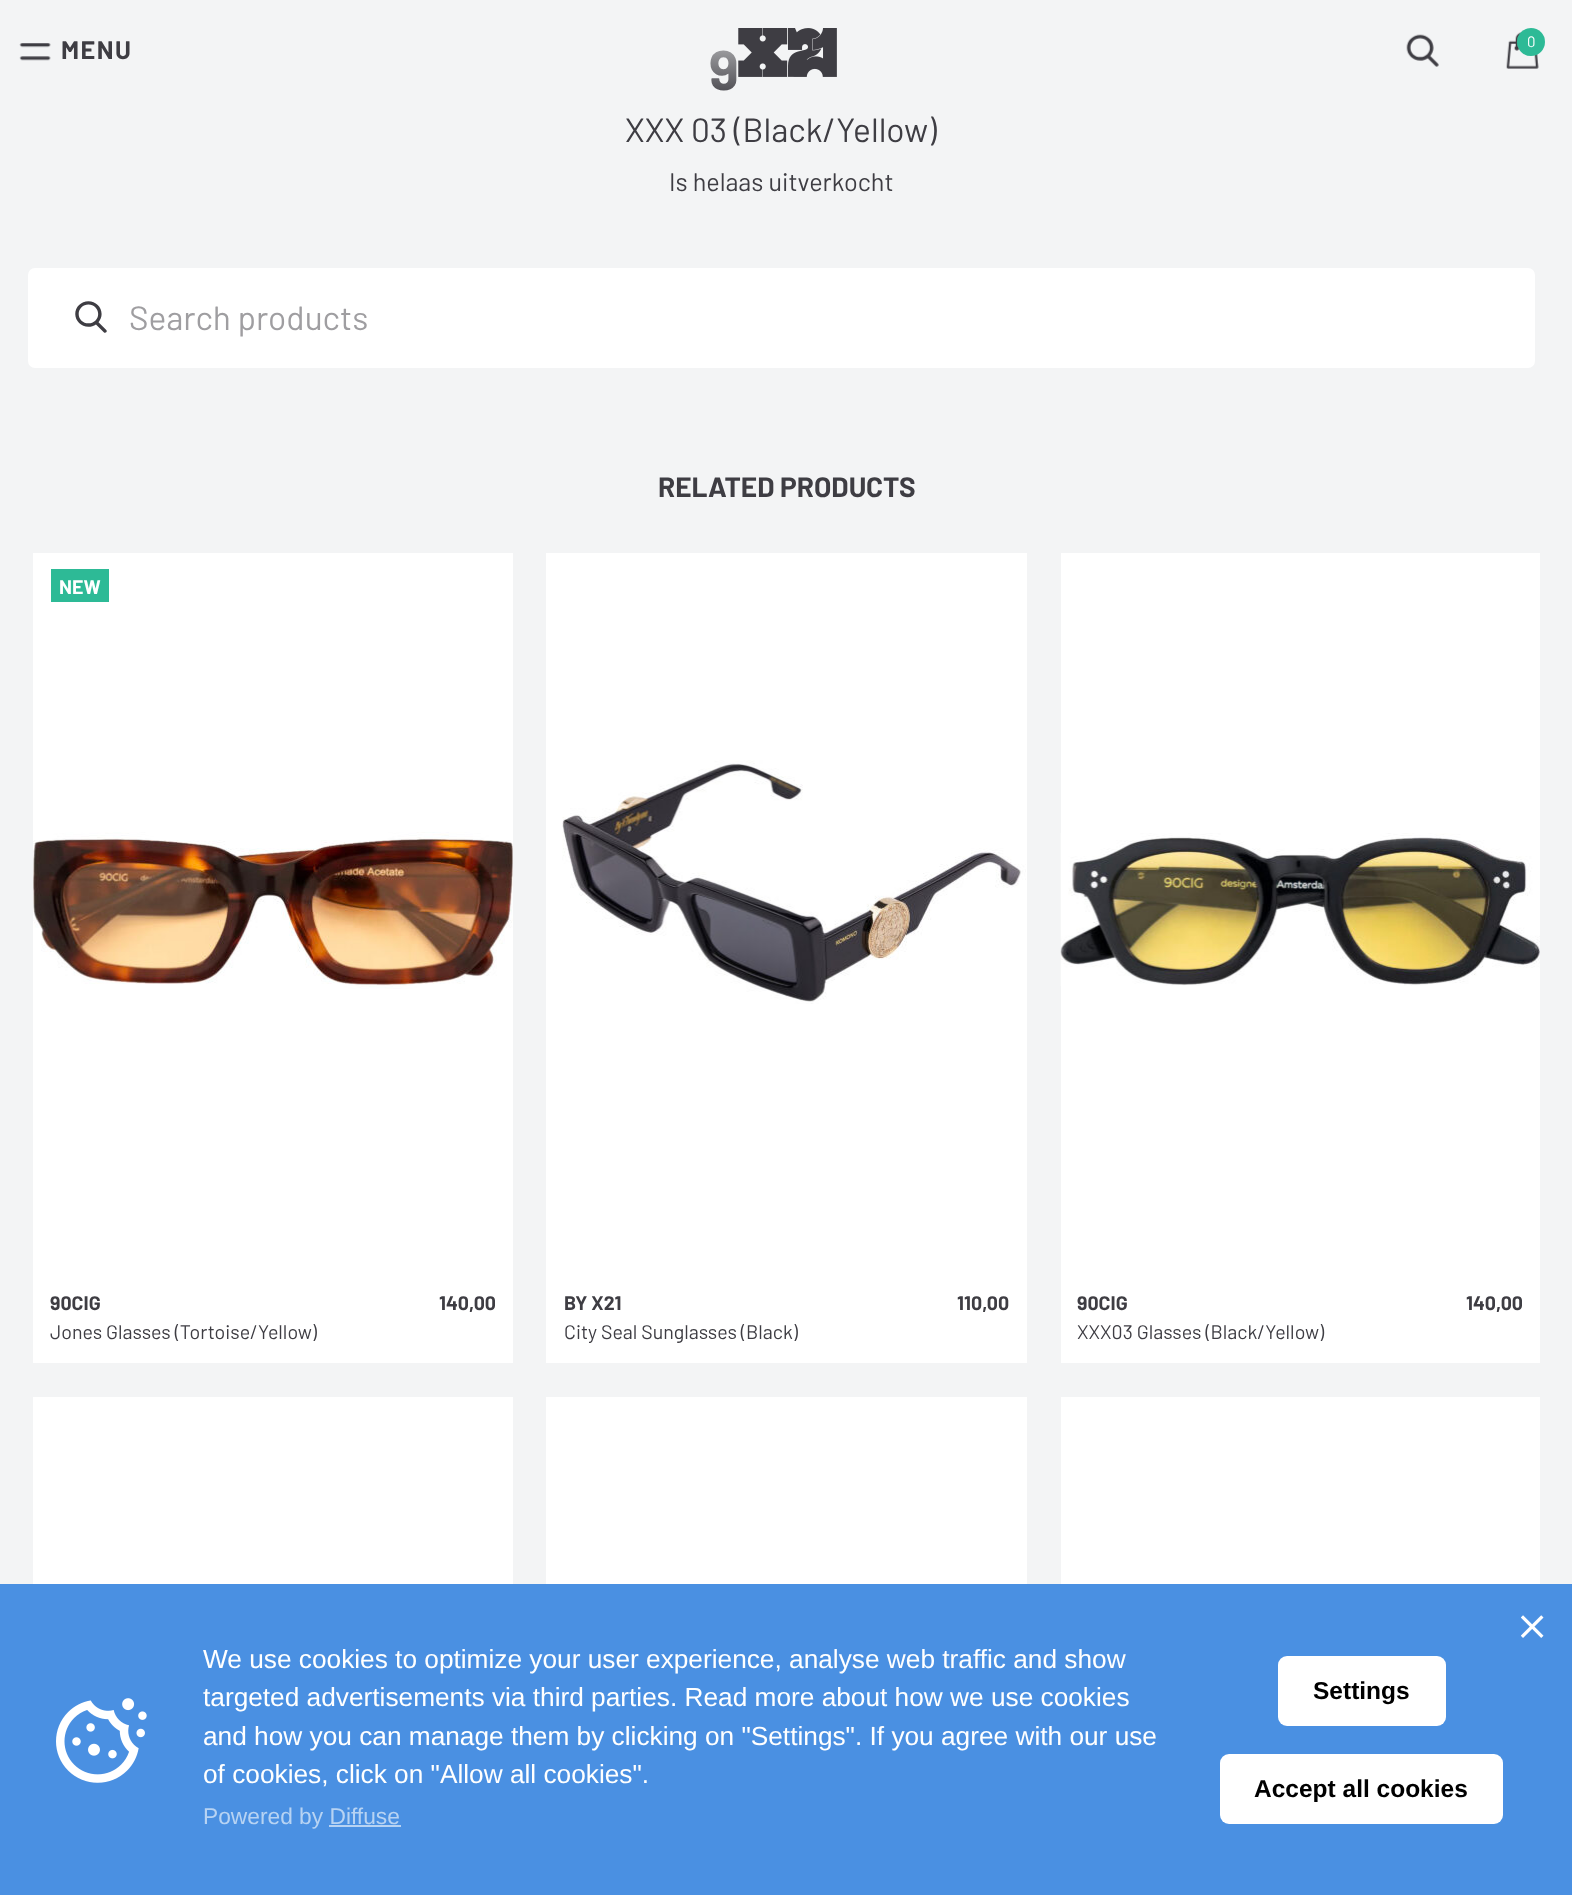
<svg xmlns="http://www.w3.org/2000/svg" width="1572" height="1895">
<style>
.a{font:bold 25.25px Barlow;letter-spacing:1.5px;fill:#3e3d43}
.b{font:15px Barlow;fill:#fff}
.c{font:bold 56px Barlow;fill:#3e3d43}
.d{font:33.5px Barlow;fill:#3e3d43}
.e{font:25.25px Barlow;fill:#3e3d43}
.f{font:33.5px Barlow;fill:#9f9ea1}
.g{font:bold 28px Barlow;fill:#3e3d43}
.h{font:bold 19.6px Barlow;fill:#fff}
.i{font:bold 19.6px Barlow;fill:#3e3d43}
.j{font:19.6px Barlow;fill:#3e3d43}
.k{font:26.25px Liberation Sans;fill:#fff}
.l{font:22.75px Liberation Sans;fill:#b7d3f3}
.m{font:bold 24.5px Liberation Sans;fill:#000}
</style>
<defs>
<linearGradient id="g1" gradientUnits="userSpaceOnUse" x1="787" y1="0" x2="787" y2="102"><stop offset="0" stop-color="#f3f4f5"/><stop offset="1" stop-color="#f3f4f5" stop-opacity="0"/></linearGradient>
</defs>
<rect width="100%" height="100%" fill="#f3f4f5"/>
<image href="1.png" x="19" y="43" width="32" height="18"/>
<image href="2.png" x="738" y="28" width="99" height="49"/>
<image href="3.png" x="1406" y="34" width="33" height="33"/>
<image href="4.png" x="1506" y="31" width="33" height="38"/>
<circle fill="#2dba96" cx="1531" cy="42" r="14"/>
<rect fill="#fff" x="28" y="268" width="1507" height="100" rx="7"/>
<image href="5.png" x="75" y="301" width="32" height="32"/>
<path fill="#fff" d="M33 553h480v810H33z"/>
<path fill="#2dba96" d="M51 569h58v33H51z"/>
<image href="6.png" x="33" y="832" width="480" height="157"/>
<path fill="#fff" d="M546 553h481v810H546z"/>
<image href="7.png" x="562" y="760" width="464" height="244"/>
<path fill="#fff" d="M1061 553h479v810H1061z"/>
<image href="8.png" x="1060" y="833" width="480" height="153"/>
<path fill="#fff" d="M33 1397h480v187H33z"/>
<path fill="#fff" d="M546 1397h481v187H546z"/>
<path fill="#fff" d="M1061 1397h479v187H1061z"/>
<path fill="#4a90e2" d="M0 1584h1572v311H0z"/>
<image href="9.png" x="1521" y="1615" width="23" height="23"/>
<image href="10.png" x="56" y="1698" width="91" height="85"/>
<path fill="#b7d3f3" d="M329 1825h72v2H329z"/>
<rect fill="#fff" x="1278" y="1656" width="168" height="70" rx="9"/>
<rect fill="#fff" x="1220" y="1754" width="283" height="70" rx="9"/>
<text class="a" x="61" y="59">MENU</text>
<text class="b" x="1527" y="47">0</text>
<text class="c" x="709" y="90">9</text>
<path fill="url(#g1)" d="M710 50h27v41H710z"/>
<text class="d" x="625" y="142">XXX 03 (Black/Yellow)</text>
<text class="e" x="669" y="191">Is helaas uitverkocht</text>
<text class="f" x="129" y="330">Search products</text>
<text class="g" x="658" y="497">RELATED PRODUCTS</text>
<text class="h" x="59" y="594">NEW</text>
<text class="i" x="50" y="1310">90CIG</text>
<text class="i" x="439" y="1310">140,00</text>
<text class="j" x="50" y="1339">Jones Glasses (Tortoise/Yellow)</text>
<text class="i" x="564" y="1310">BY X21</text>
<text class="i" x="957" y="1310">110,00</text>
<text class="j" x="564" y="1339">City Seal Sunglasses (Black)</text>
<text class="i" x="1077" y="1310">90CIG</text>
<text class="i" x="1466" y="1310">140,00</text>
<text class="j" x="1077" y="1339">XXX03 Glasses (Black/Yellow)</text>
<text class="k" x="203" y="1668">We use cookies to optimize your user experience, analyse web traffic and show</text>
<text class="k" x="203" y="1706">targeted advertisements via third parties. Read more about how we use cookies</text>
<text class="k" x="203" y="1745">and how you can manage them by clicking on "Settings". If you agree with our use</text>
<text class="k" x="203" y="1783">of cookies, click on "Allow all cookies".</text>
<text class="l" x="203" y="1824">Powered by Diffuse</text>
<text class="m" x="1313" y="1699">Settings</text>
<text class="m" x="1254" y="1797">Accept all cookies</text>
</svg>
